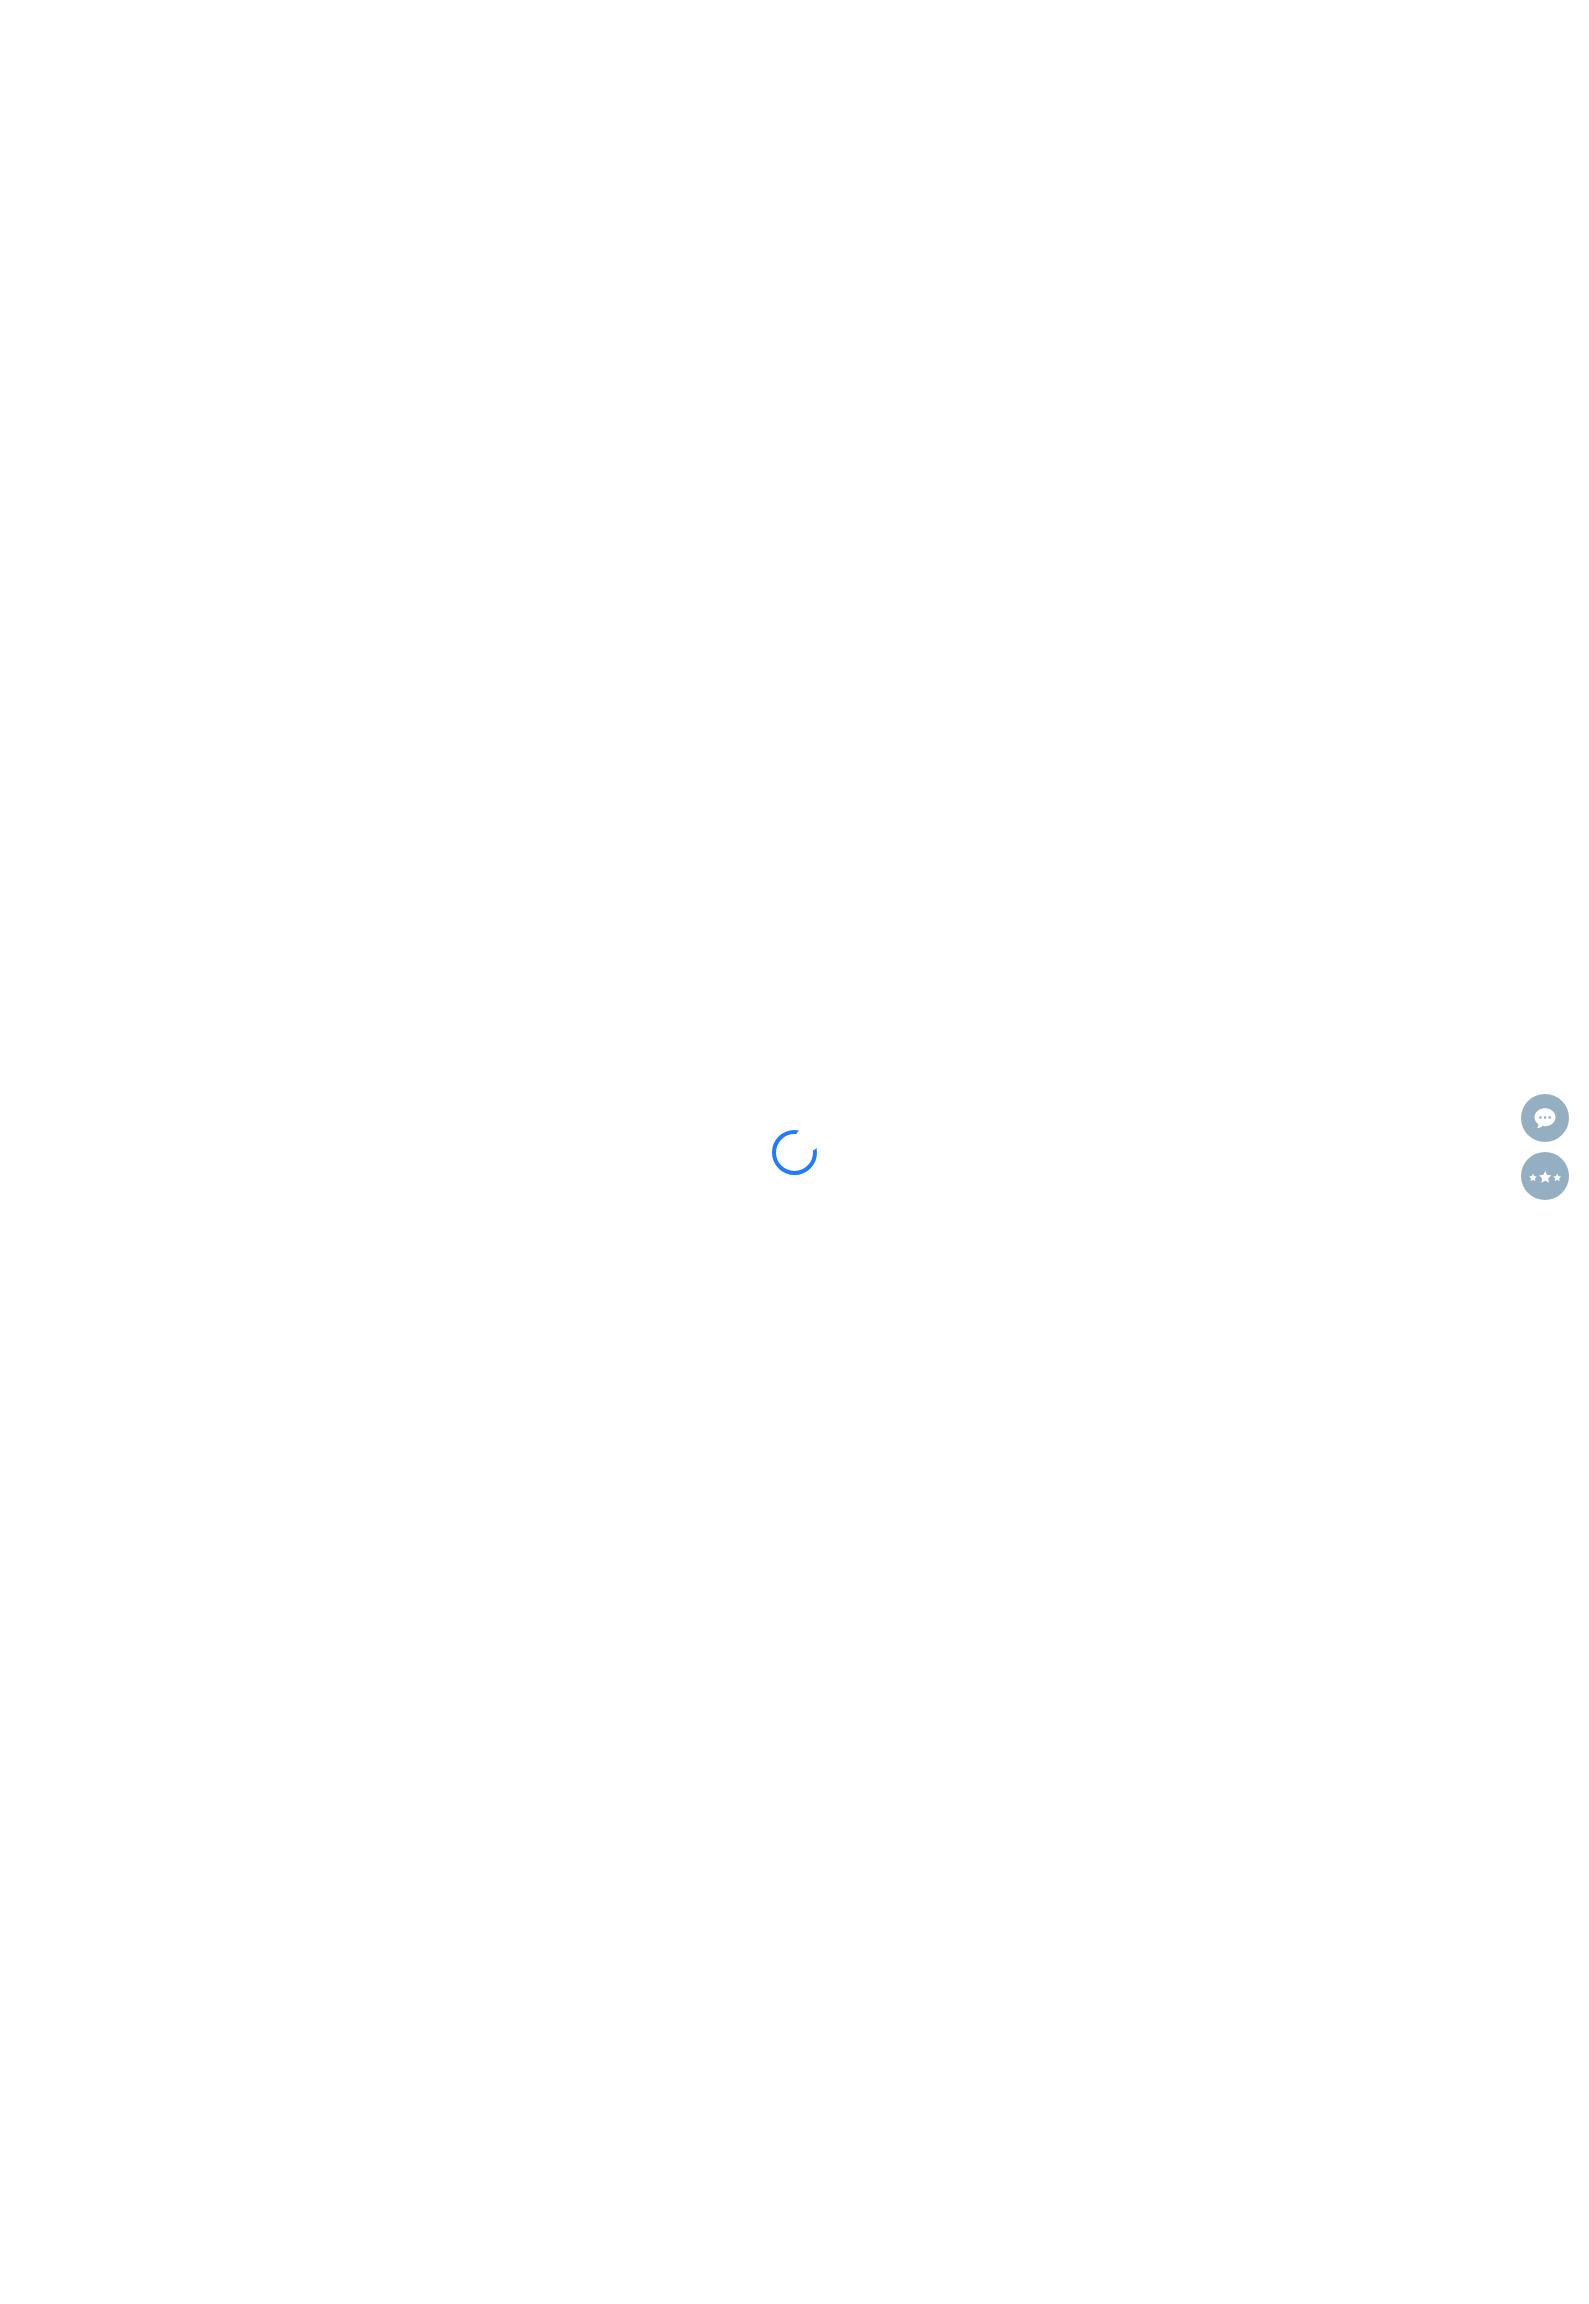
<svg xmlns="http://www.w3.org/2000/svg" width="1589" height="2304">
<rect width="100%" height="100%" fill="#fff"/>
<circle fill="none" stroke="#227aff" stroke-width="4" cx="794.5" cy="1152.5" r="20.5"/>
<circle fill="#fff" cx="807.5" cy="1139.5" r="12.5"/>
<circle fill="#95afc2" cx="1545" cy="1118" r="24"/>
<image href="1.png" x="1534" y="1108" width="22" height="20"/>
<circle fill="#95afc2" cx="1545" cy="1176" r="24"/>
<image href="2.png" x="1529" y="1171" width="32" height="12"/>
</svg>
